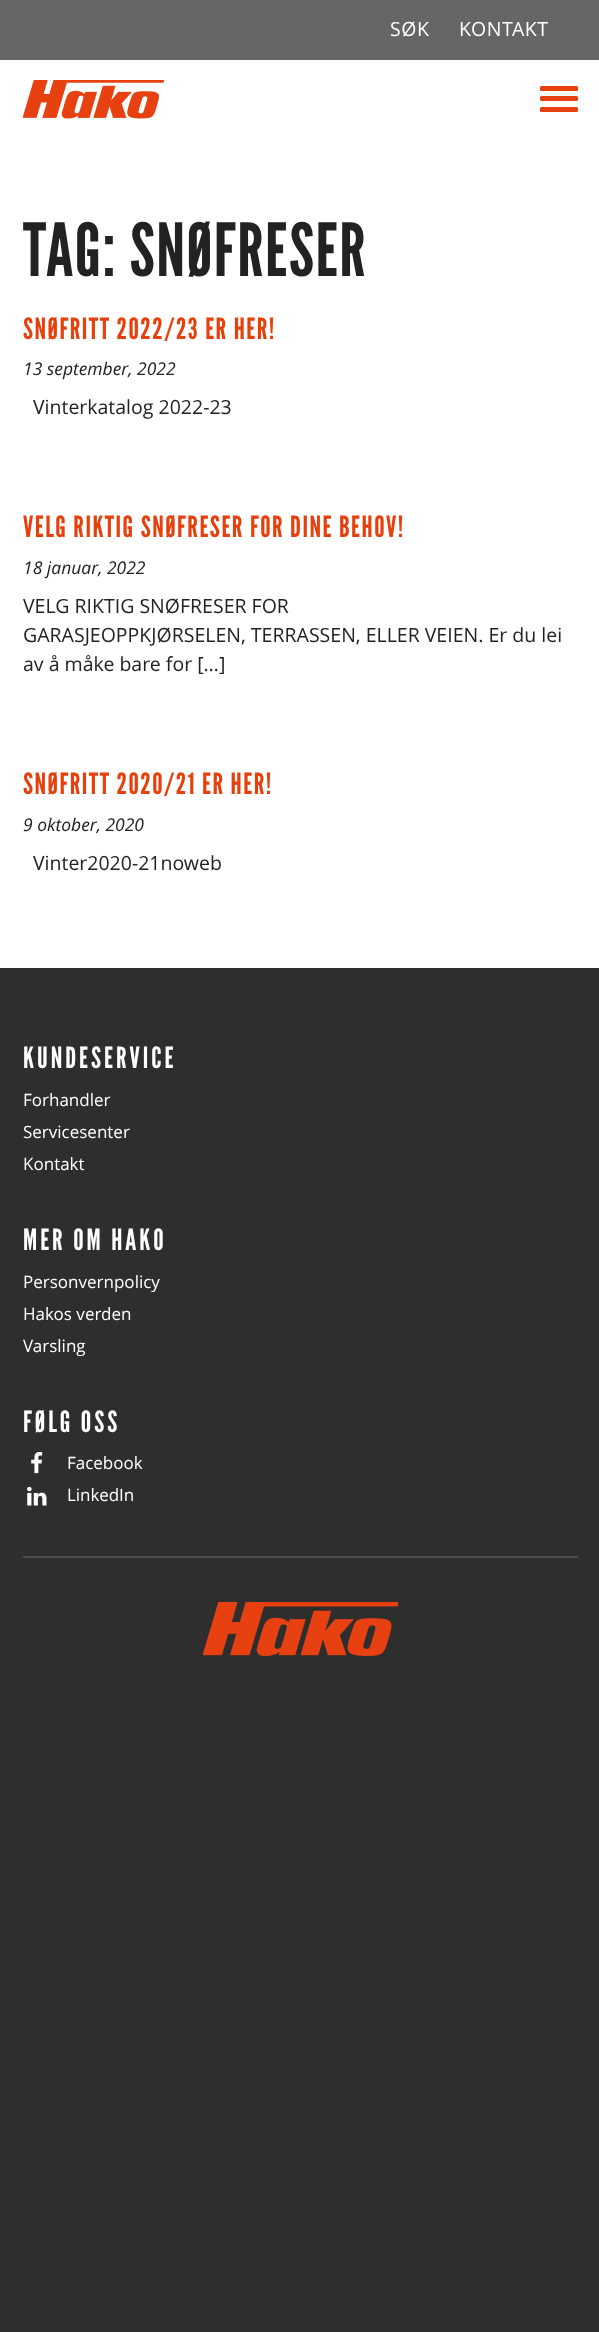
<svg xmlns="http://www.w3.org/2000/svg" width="599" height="2332">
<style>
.a{font:19.5px Open Sans;letter-spacing:0.5px;fill:#fff}
.b{font:73px League Gothic;letter-spacing:1.5px;fill:#222}
.c{font:29.25px League Gothic;letter-spacing:1.5px;fill:#e7400c}
.d{font:italic 17.5px Open Sans;fill:#222}
.e{font:19.5px Open Sans;fill:#222}
.f{font:29.25px League Gothic;letter-spacing:3px;fill:#fff}
.g{font:17px Open Sans;fill:#fff}
</style>
<rect width="100%" height="100%" fill="#2e2e2e"/>
<path fill="#fff" d="M0 60h599v908H0z"/>
<path fill="#666" d="M0 0h599v60H0z"/>
<image href="1.png" x="23" y="80" width="142" height="39"/>
<rect fill="#e7400c" x="540" y="86" width="38" height="5" rx="1.5"/>
<rect fill="#e7400c" x="540" y="96" width="38" height="5" rx="1.5"/>
<rect fill="#e7400c" x="540" y="107" width="38" height="5" rx="1.5"/>
<image href="2.png" x="31" y="1452" width="12" height="22"/>
<image href="3.png" x="27" y="1486" width="20" height="20"/>
<path fill="#4c4c4c" d="M23 1556h555v2H23z"/>
<image href="4.png" x="203" y="1602" width="195" height="54"/>
<text class="a" x="390" y="36">SØK</text>
<text class="a" x="459" y="36">KONTAKT</text>
<text class="b" x="23" y="276">TAG: SNØFRESER</text>
<text class="c" x="23" y="339">SNØFRITT 2022/23 ER HER!</text>
<text class="d" x="23" y="375">13 september, 2022</text>
<text class="e" x="33" y="414">Vinterkatalog 2022-23</text>
<text class="c" x="23" y="537">VELG RIKTIG SNØFRESER FOR DINE BEHOV!</text>
<text class="d" x="23" y="574">18 januar, 2022</text>
<text class="e" x="23" y="613">VELG RIKTIG SNØFRESER FOR</text>
<text class="e" x="23" y="642">GARASJEOPPKJØRSELEN, TERRASSEN, ELLER VEIEN. Er du lei</text>
<text class="e" x="23" y="671">av å måke bare for […]</text>
<text class="c" x="23" y="794">SNØFRITT 2020/21 ER HER!</text>
<text class="d" x="23" y="831">9 oktober, 2020</text>
<text class="e" x="33" y="870">Vinter2020-21noweb</text>
<text class="f" x="23" y="1068">KUNDESERVICE</text>
<text class="g" x="23" y="1106">Forhandler</text>
<text class="g" x="23" y="1138">Servicesenter</text>
<text class="g" x="23" y="1170">Kontakt</text>
<text class="f" x="23" y="1250">MER OM HAKO</text>
<text class="g" x="23" y="1288">Personvernpolicy</text>
<text class="g" x="23" y="1320">Hakos verden</text>
<text class="g" x="23" y="1352">Varsling</text>
<text class="f" x="23" y="1432">FØLG OSS</text>
<text class="g" x="67" y="1469">Facebook</text>
<text class="g" x="67" y="1501">LinkedIn</text>
</svg>
